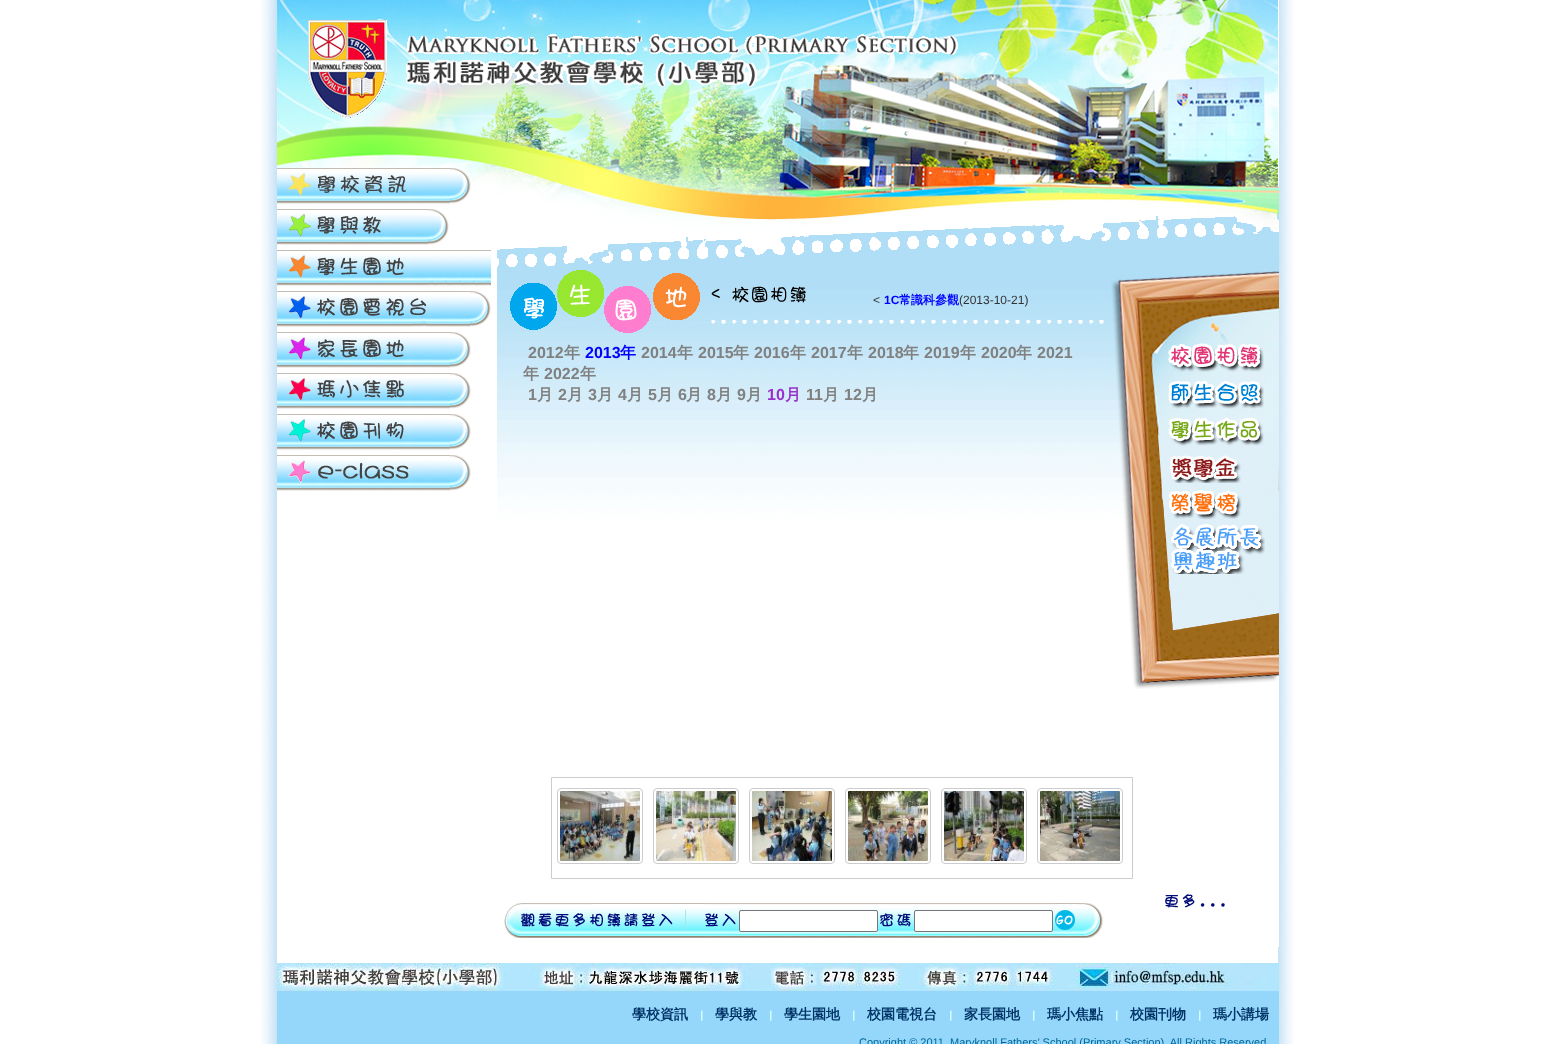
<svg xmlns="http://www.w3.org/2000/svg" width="1556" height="1044">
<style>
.a{font:12px Liberation Sans;fill:#333}
.b{font:bold 12px Liberation Sans;fill:#00f}
.c{font:bold 12px WenQuanYi Zen Hei;fill:#00f}
.d{font:bold 16px Liberation Sans;fill:#808080}
.e{font:bold 16px WenQuanYi Zen Hei;fill:#808080}
.f{font:bold 16px Liberation Sans;fill:#00f}
.g{font:bold 16px WenQuanYi Zen Hei;fill:#00f}
.h{font:bold 16px Liberation Sans;fill:#9932cc}
.i{font:bold 16px WenQuanYi Zen Hei;fill:#9932cc}
.j{font:bold 14px WenQuanYi Zen Hei;fill:#036}
.k{font:11px Liberation Sans;fill:#069}
</style>
<rect width="100%" height="100%" fill="#fff"/>
<image href="1.png" x="261" y="0" width="1033" height="1044"/>
<image href="2.png" x="277" y="0" width="1002" height="439"/>
<image href="3.png" x="308" y="20" width="650" height="98"/>
<image href="4.png" x="277" y="168" width="173" height="36"/>
<image href="5.png" x="450" y="168" width="21" height="36"/>
<image href="6.png" x="277" y="209" width="151" height="36"/>
<image href="7.png" x="428" y="209" width="21" height="36"/>
<image href="8.png" x="428" y="250" width="63" height="36"/>
<image href="9.png" x="277" y="250" width="151" height="36"/>
<image href="10.png" x="277" y="291" width="193" height="36"/>
<image href="7.png" x="470" y="291" width="21" height="36"/>
<image href="11.png" x="277" y="332" width="173" height="5"/>
<image href="12.png" x="277" y="337" width="173" height="31"/>
<image href="7.png" x="450" y="332" width="21" height="36"/>
<image href="13.png" x="277" y="373" width="173" height="36"/>
<image href="7.png" x="450" y="373" width="21" height="36"/>
<image href="14.png" x="277" y="414" width="173" height="4"/>
<image href="15.png" x="277" y="418" width="173" height="32"/>
<image href="7.png" x="450" y="414" width="21" height="36"/>
<image href="16.png" x="277" y="455" width="173" height="2"/>
<image href="17.png" x="277" y="457" width="173" height="34"/>
<image href="7.png" x="450" y="455" width="21" height="36"/>
<image href="18.png" x="497" y="215" width="782" height="732"/>
<image href="19.png" x="510" y="270" width="190" height="63"/>
<image href="20.png" x="711" y="286" width="95" height="17"/>
<image href="21.png" x="711" y="320" width="393" height="4"/>
<path fill="none" stroke="#ccc" d="M551.5 777.5h581v101H551.5z"/>
<rect fill="none" stroke="#ccc" x="557.5" y="788.5" width="85" height="75" rx="3.5"/>
<image href="22.png" x="560" y="791" width="80" height="70"/>
<rect fill="none" stroke="#ccc" x="653.5" y="788.5" width="85" height="75" rx="3.5"/>
<image href="23.png" x="656" y="791" width="80" height="70"/>
<rect fill="none" stroke="#ccc" x="749.5" y="788.5" width="85" height="75" rx="3.5"/>
<image href="24.png" x="752" y="791" width="80" height="70"/>
<rect fill="none" stroke="#ccc" x="845.5" y="788.5" width="85" height="75" rx="3.5"/>
<image href="25.png" x="848" y="791" width="80" height="70"/>
<rect fill="none" stroke="#ccc" x="941.5" y="788.5" width="85" height="75" rx="3.5"/>
<image href="26.png" x="944" y="791" width="80" height="70"/>
<rect fill="none" stroke="#ccc" x="1037.5" y="788.5" width="85" height="75" rx="3.5"/>
<image href="27.png" x="1040" y="791" width="80" height="70"/>
<image href="28.png" x="504" y="903" width="201" height="35"/>
<image href="29.png" x="705" y="903" width="370" height="35"/>
<image href="30.png" x="705" y="913" width="31" height="14"/>
<rect fill="#fff" stroke="#767676" x="739.5" y="910.5" width="138" height="21" rx="1.5"/>
<image href="31.png" x="880" y="913" width="31" height="14"/>
<rect fill="#fff" stroke="#767676" x="914.5" y="910.5" width="138" height="21" rx="1.5"/>
<image href="32.png" x="1055" y="903" width="20" height="27"/>
<image href="33.png" x="1075" y="903" width="28" height="35"/>
<image href="34.png" x="1111" y="271" width="168" height="418"/>
<image href="35.png" x="1168" y="343" width="96" height="29"/>
<image href="36.png" x="1168" y="380" width="96" height="29"/>
<image href="37.png" x="1168" y="417" width="96" height="29"/>
<image href="38.png" x="1169" y="455" width="72" height="28"/>
<image href="39.png" x="1168" y="490" width="74" height="30"/>
<image href="40.png" x="1170" y="524" width="95" height="50"/>
<image href="41.png" x="1165" y="894" width="60" height="14"/>
<image href="42.png" x="277" y="963" width="1002" height="28"/>
<path fill="#95d7fa" d="M277 991h1002v53H277z"/>
<image href="43.png" x="701" y="1008" width="2" height="13"/>
<image href="43.png" x="770" y="1008" width="2" height="13"/>
<image href="43.png" x="853" y="1008" width="2" height="13"/>
<image href="43.png" x="950" y="1008" width="2" height="13"/>
<image href="43.png" x="1033" y="1008" width="2" height="13"/>
<image href="43.png" x="1116" y="1008" width="2" height="13"/>
<image href="43.png" x="1199" y="1008" width="2" height="13"/>
<text class="a" x="873" y="304">&lt;</text>
<text class="b" x="884" y="304">1C</text>
<text class="c" x="899" y="304">常識科參觀</text>
<text class="a" x="959" y="304">(2013-10-21)</text>
<text class="d" x="528" y="358">2012</text>
<text class="e" x="564" y="358">年</text>
<text class="f" x="585" y="358">2013</text>
<text class="g" x="620" y="358">年</text>
<text class="d" x="641" y="358">2014</text>
<text class="e" x="677" y="358">年</text>
<text class="d" x="698" y="358">2015</text>
<text class="e" x="733" y="358">年</text>
<text class="d" x="754" y="358">2016</text>
<text class="e" x="790" y="358">年</text>
<text class="d" x="811" y="358">2017</text>
<text class="e" x="847" y="358">年</text>
<text class="d" x="868" y="358">2018</text>
<text class="e" x="903" y="358">年</text>
<text class="d" x="924" y="358">2019</text>
<text class="e" x="960" y="358">年</text>
<text class="d" x="981" y="358">2020</text>
<text class="e" x="1016" y="358">年</text>
<text class="d" x="1037" y="358">2021</text>
<text class="e" x="523" y="379">年</text>
<text class="d" x="544" y="379">2022</text>
<text class="e" x="580" y="379">年</text>
<text class="d" x="528" y="400">1</text>
<text class="e" x="537" y="400">月</text>
<text class="d" x="558" y="400">2</text>
<text class="e" x="567" y="400">月</text>
<text class="d" x="588" y="400">3</text>
<text class="e" x="597" y="400">月</text>
<text class="d" x="618" y="400">4</text>
<text class="e" x="627" y="400">月</text>
<text class="d" x="648" y="400">5</text>
<text class="e" x="657" y="400">月</text>
<text class="d" x="678" y="400">6</text>
<text class="e" x="686" y="400">月</text>
<text class="d" x="707" y="400">8</text>
<text class="e" x="716" y="400">月</text>
<text class="d" x="737" y="400">9</text>
<text class="e" x="746" y="400">月</text>
<text class="h" x="767" y="400">10</text>
<text class="i" x="785" y="400">月</text>
<text class="d" x="806" y="400">11</text>
<text class="e" x="823" y="400">月</text>
<text class="d" x="844" y="400">12</text>
<text class="e" x="862" y="400">月</text>
<text class="j" x="632" y="1019">學校資訊</text>
<text class="j" x="715" y="1019">學與教</text>
<text class="j" x="784" y="1019">學生園地</text>
<text class="j" x="867" y="1019">校園電視台</text>
<text class="j" x="964" y="1019">家長園地</text>
<text class="j" x="1047" y="1019">瑪小焦點</text>
<text class="j" x="1130" y="1019">校園刊物</text>
<text class="j" x="1213" y="1019">瑪小講場</text>
<text class="k" x="859" y="1046">Copyright © 2011. Maryknoll Fathers’ School (Primary Section). All Rights Reserved</text>
</svg>
